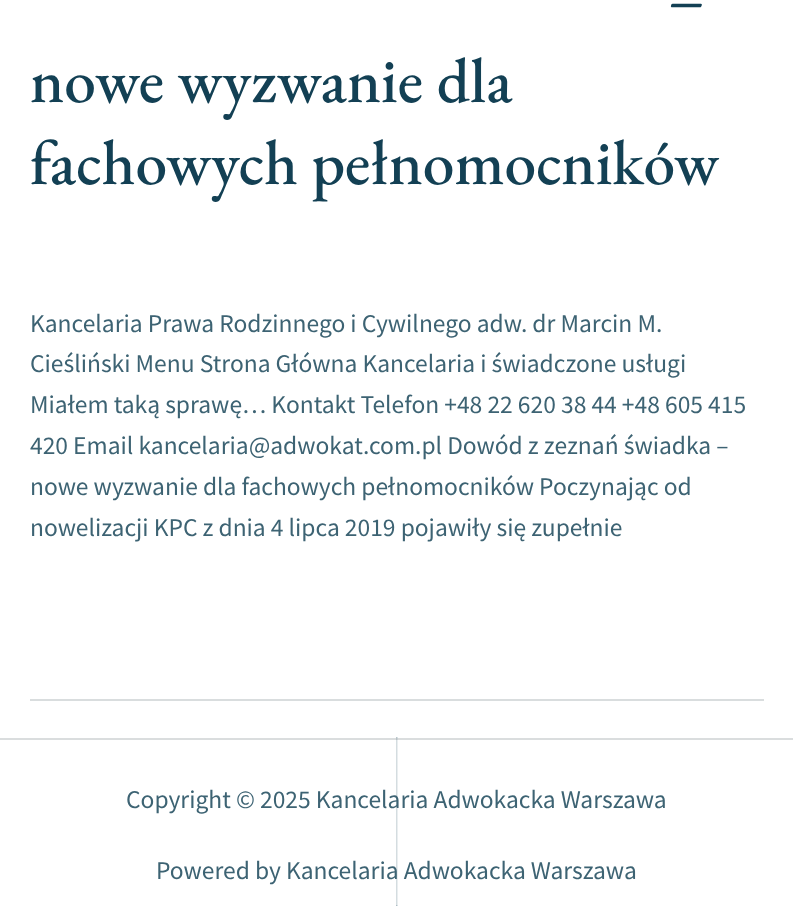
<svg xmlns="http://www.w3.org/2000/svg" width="793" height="906">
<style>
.a{font:500 63.5px EB Garamond;fill:#134054}
.b{font:25.5px Source Sans Pro;fill:#3d6373}
</style>
<rect width="100%" height="100%" fill="#fff"/>
<path fill="#d9ddde" d="M30 699h734v2H30z"/>
<image href="1.png" x="396" y="737" width="2" height="169"/>
<path fill="#384a4f30" d="M0 738h793v2H0z"/>
<text class="a" x="668" y="19">–</text>
<text class="a" x="30" y="102">nowe wyzwanie dla</text>
<text class="a" x="30" y="184">fachowych pełnomocników</text>
<text class="b" x="30" y="332">Kancelaria Prawa Rodzinnego i Cywilnego adw. dr Marcin M.</text>
<text class="b" x="30" y="372">Cieśliński Menu Strona Główna Kancelaria i świadczone usługi</text>
<text class="b" x="30" y="413">Miałem taką sprawę… Kontakt Telefon +48 22 620 38 44 +48 605 415</text>
<text class="b" x="30" y="454">420 Email kancelaria@adwokat.com.pl Dowód z zeznań świadka –</text>
<text class="b" x="30" y="495">nowe wyzwanie dla fachowych pełnomocników Poczynając od</text>
<text class="b" x="30" y="536">nowelizacji KPC z dnia 4 lipca 2019 pojawiły się zupełnie</text>
<text class="b" x="126" y="808">Copyright © 2025 Kancelaria Adwokacka Warszawa</text>
<text class="b" x="156" y="879">Powered by Kancelaria Adwokacka Warszawa</text>
</svg>
